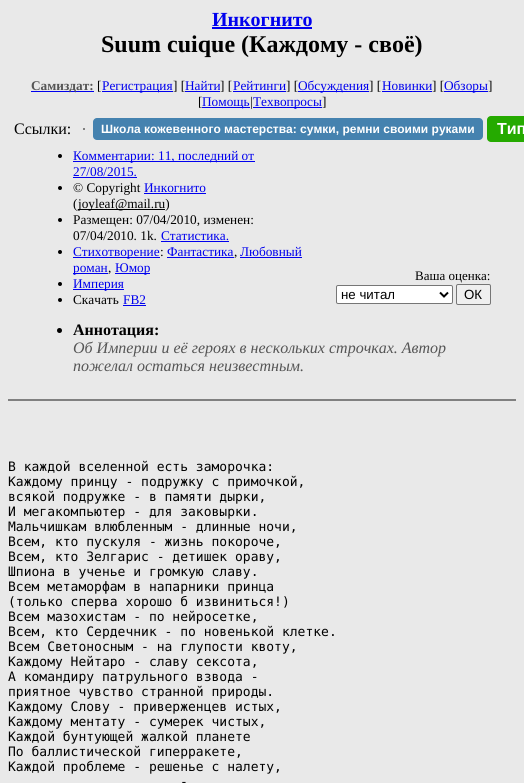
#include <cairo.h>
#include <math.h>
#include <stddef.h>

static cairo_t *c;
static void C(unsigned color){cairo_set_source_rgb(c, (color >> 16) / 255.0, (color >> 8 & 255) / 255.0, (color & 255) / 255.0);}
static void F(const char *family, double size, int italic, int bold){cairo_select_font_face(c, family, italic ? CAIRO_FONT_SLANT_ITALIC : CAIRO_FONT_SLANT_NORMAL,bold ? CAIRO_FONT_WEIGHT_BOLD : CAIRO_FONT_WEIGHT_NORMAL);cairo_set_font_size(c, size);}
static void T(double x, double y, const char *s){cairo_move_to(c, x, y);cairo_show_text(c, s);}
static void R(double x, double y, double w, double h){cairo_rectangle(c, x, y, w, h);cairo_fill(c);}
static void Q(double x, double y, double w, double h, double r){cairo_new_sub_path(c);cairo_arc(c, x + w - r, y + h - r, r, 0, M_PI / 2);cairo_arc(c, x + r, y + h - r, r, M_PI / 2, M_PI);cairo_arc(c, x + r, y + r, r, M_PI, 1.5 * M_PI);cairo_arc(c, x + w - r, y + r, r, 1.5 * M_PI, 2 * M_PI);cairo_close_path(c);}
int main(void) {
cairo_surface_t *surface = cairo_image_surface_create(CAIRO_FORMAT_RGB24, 524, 783);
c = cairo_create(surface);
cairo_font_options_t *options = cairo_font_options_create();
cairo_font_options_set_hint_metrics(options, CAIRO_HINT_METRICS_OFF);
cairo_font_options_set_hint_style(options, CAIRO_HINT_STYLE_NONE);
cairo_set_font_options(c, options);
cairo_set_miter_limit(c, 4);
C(0xe9e9e9);
cairo_paint(c);
F("Liberation Serif",20,0,1);
C(0x0000ee);
T(212,26,"Инкогнито");
R(212,27,100,2);
F("Liberation Serif",24,0,1);
C(0x000000);
T(101,52,"Suum cuique (Каждому - своё)");
C(0x0000ee);
R(31,91,63,1);
F("Liberation Serif",13.3,0,1);
C(0x555555);
T(31,90,"Самиздат:");
F("Liberation Serif",13.3,0,0);
C(0x000000);
T(97,90,"[");
C(0x0000ee);
R(102,91,71,1);
T(102,90,"Регистрация");
C(0x000000);
T(173,90,"] [");
C(0x0000ee);
R(185,91,35,1);
T(185,90,"Найти");
C(0x000000);
T(220,90,"] [");
C(0x0000ee);
R(233,91,53,1);
T(233,90,"Рейтинги");
C(0x000000);
T(286,90,"] [");
C(0x0000ee);
R(298,91,71,1);
T(298,90,"Обсуждения");
C(0x000000);
T(369,90,"] [");
C(0x0000ee);
R(382,91,50,1);
T(382,90,"Новинки");
C(0x000000);
T(432,90,"] [");
C(0x0000ee);
R(444,91,44,1);
T(444,90,"Обзоры");
C(0x000000);
T(488,90,"]");
T(198,106,"[");
C(0x0000ee);
R(202,107,48,1);
T(202,106,"Помощь");
C(0x000000);
T(250,106,"|");
C(0x0000ee);
R(253,107,69,1);
T(253,106,"Техвопросы");
C(0x000000);
T(322,106,"]");
F("Liberation Serif",16,0,0);
T(14,134,"Ссылки:");
C(0x808080);
R(83,128,2,2);
C(0x4582af);
Q(93,118,390,22,4);
cairo_fill(c);
F("Liberation Sans",12,0,1);
C(0xffffff);
T(101,133,"Школа кожевенного мастерства: сумки, ремни своими руками");
C(0x25aa00);
Q(487,116,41,26,4);
cairo_fill(c);
F("Liberation Sans",16,0,1);
C(0xffffff);
T(497,134,"Тип");
C(0x000000);
cairo_new_path(c);
cairo_arc(c,60,156,2,0,2 * M_PI);
cairo_fill(c);
C(0x0000ee);
R(73,161,182,1);
F("Liberation Serif",13.3,0,0);
T(73,160,"Комментарии: 11, последний от");
T(73,176,"27/08/2015.");
R(73,177,64,1);
C(0x000000);
cairo_new_path(c);
cairo_arc(c,60,188,2,0,2 * M_PI);
cairo_fill(c);
T(73,192,"© Copyright");
C(0x0000ee);
T(144,192,"Инкогнито");
R(144,193,62,1);
C(0x000000);
T(73,208,"(");
R(78,209,87,1);
T(78,208,"joyleaf@mail.ru)");
cairo_new_path(c);
cairo_arc(c,60,220,2,0,2 * M_PI);
cairo_fill(c);
T(73,224,"Размещен: 07/04/2010, изменен:");
T(73,240,"07/04/2010. 1k.");
C(0x0000ee);
T(161,240,"Статистика.");
R(161,241,68,1);
C(0x000000);
cairo_new_path(c);
cairo_arc(c,60,252,2,0,2 * M_PI);
cairo_fill(c);
C(0x0000ee);
R(73,257,87,1);
T(73,256,"Стихотворение");
C(0x000000);
T(160,256,":");
C(0x0000ee);
T(167,256,"Фантастика");
R(167,257,67,1);
T(240,256,"Любовный");
R(240,257,62,1);
C(0x000000);
T(234,256,",");
C(0x0000ee);
R(73,273,35,1);
T(73,272,"роман");
C(0x000000);
T(108,272,",");
C(0x0000ee);
R(115,273,35,1);
T(115,272,"Юмор");
C(0x000000);
cairo_new_path(c);
cairo_arc(c,60,284,2,0,2 * M_PI);
cairo_fill(c);
C(0x0000ee);
R(73,289,51,1);
T(73,288,"Империя");
C(0x000000);
cairo_new_path(c);
cairo_arc(c,60,300,2,0,2 * M_PI);
cairo_fill(c);
T(73,304,"Скачать");
C(0x0000ee);
T(123,304,"FB2");
R(123,305,23,1);
F("Liberation Serif",13,0,0);
C(0x000000);
T(415,280,"Ваша оценка:");
C(0xffffff);
Q(336.5,285.5,116,18,1.5);
cairo_fill_preserve(c);
C(0x767676);
cairo_set_line_width(c,1);
cairo_stroke(c);
cairo_new_path(c);
cairo_move_to(c,440,292.5);
cairo_line_to(c,444,296.5);
cairo_line_to(c,448,292.5);
C(0x000000);
cairo_set_line_width(c,2);
cairo_stroke(c);
F("Liberation Sans",13.3,0,0);
T(341,299,"не читал");
C(0xefefef);
Q(456.5,284.5,34,20,1.5);
cairo_fill_preserve(c);
C(0x767676);
cairo_set_line_width(c,1);
cairo_stroke(c);
C(0x000000);
T(464,299,"ОК");
cairo_new_path(c);
cairo_arc(c,59.5,330.5,2.5,0,2 * M_PI);
cairo_fill(c);
F("Liberation Serif",16,0,1);
T(73,335,"Аннотация:");
F("Liberation Serif",16,1,0);
C(0x555555);
T(73,353,"Об Империи и её героях в нескольких строчках. Автор");
T(73,371,"пожелал остаться неизвестным.");
C(0x808080);
R(8,399,508,2);
F("DejaVu Sans Mono",13,0,0);
C(0x000000);
T(8,471,"В каждой вселенной есть заморочка:");
T(8,486,"Каждому принцу - подружку с примочкой,");
T(8,501,"всякой подружке - в памяти дырки,");
T(8,516,"И мегакомпьютер - для заковырки.");
T(8,531,"Мальчишкам влюбленным - длинные ночи,");
T(8,546,"Всем, кто пускуля - жизнь покороче,");
T(8,561,"Всем, кто Зелгарис - детишек ораву,");
T(8,576,"Шпиона в ученье и громкую славу.");
T(8,591,"Всем метаморфам в напарники принца");
T(8,606,"(только сперва хорошо б извиниться!)");
T(8,621,"Всем мазохистам - по нейросетке,");
T(8,636,"Всем, кто Сердечник - по новенькой клетке.");
T(8,651,"Всем Светоносным - на глупости квоту,");
T(8,666,"Каждому Нейтаро - славу сексота,");
T(8,681,"А командиру патрульного взвода -");
T(8,696,"приятное чувство странной природы.");
T(8,711,"Каждому Слову - приверженцев истых,");
T(8,726,"Каждому ментату - сумерек чистых,");
T(8,741,"Каждой бунтующей жалкой планете");
T(8,756,"По баллистической гиперракете,");
T(8,771,"Каждой проблеме - решенье с налету,");
T(180,786,"-");
cairo_surface_write_to_png(surface, "o.png");
cairo_font_options_destroy(options);
cairo_destroy(c);
cairo_surface_destroy(surface);
return 0;
}
